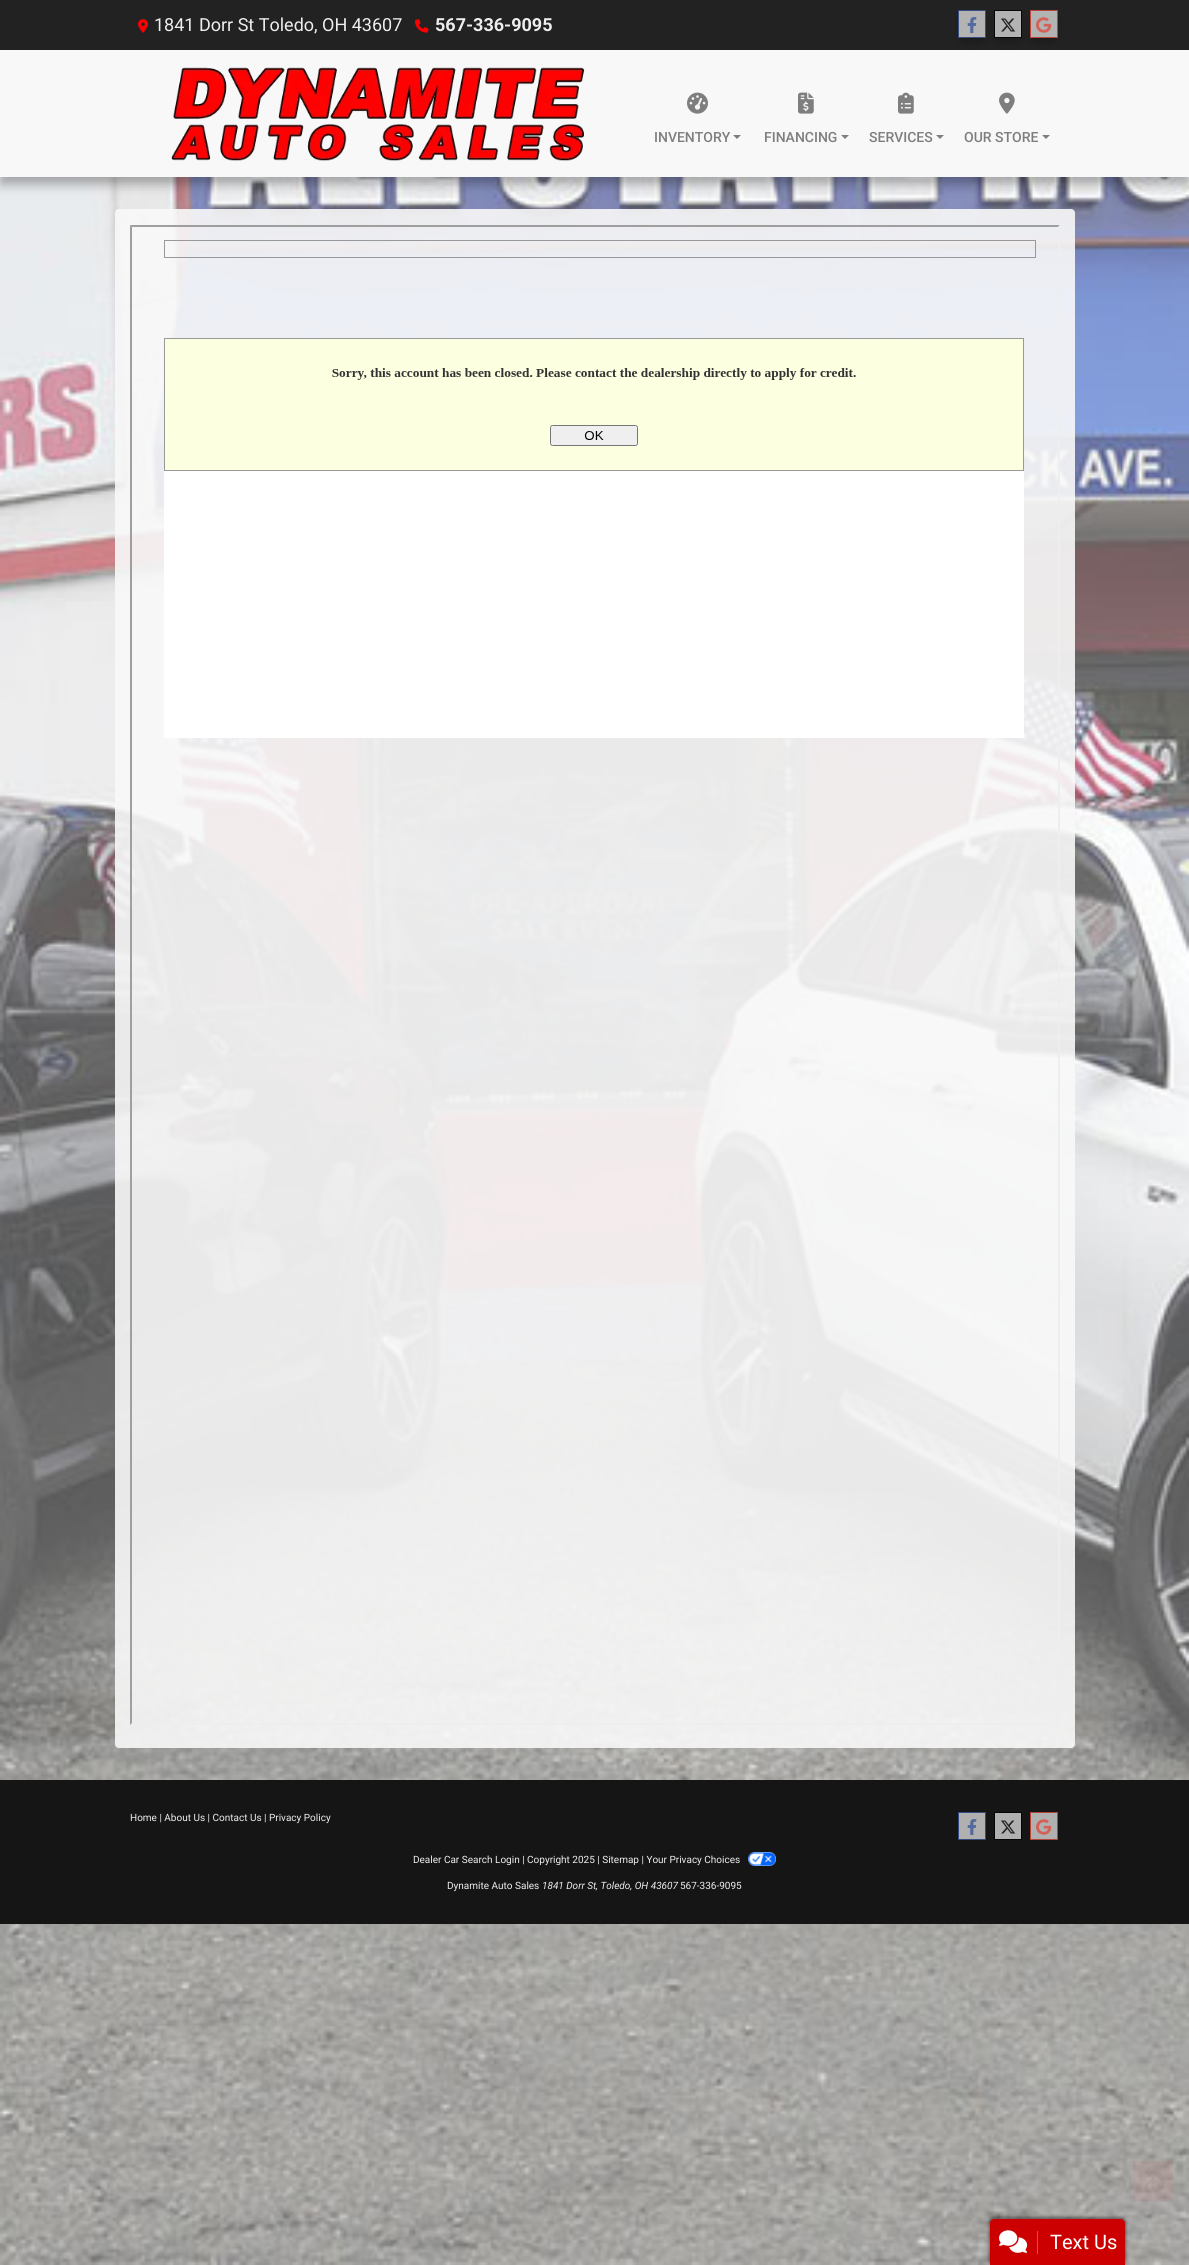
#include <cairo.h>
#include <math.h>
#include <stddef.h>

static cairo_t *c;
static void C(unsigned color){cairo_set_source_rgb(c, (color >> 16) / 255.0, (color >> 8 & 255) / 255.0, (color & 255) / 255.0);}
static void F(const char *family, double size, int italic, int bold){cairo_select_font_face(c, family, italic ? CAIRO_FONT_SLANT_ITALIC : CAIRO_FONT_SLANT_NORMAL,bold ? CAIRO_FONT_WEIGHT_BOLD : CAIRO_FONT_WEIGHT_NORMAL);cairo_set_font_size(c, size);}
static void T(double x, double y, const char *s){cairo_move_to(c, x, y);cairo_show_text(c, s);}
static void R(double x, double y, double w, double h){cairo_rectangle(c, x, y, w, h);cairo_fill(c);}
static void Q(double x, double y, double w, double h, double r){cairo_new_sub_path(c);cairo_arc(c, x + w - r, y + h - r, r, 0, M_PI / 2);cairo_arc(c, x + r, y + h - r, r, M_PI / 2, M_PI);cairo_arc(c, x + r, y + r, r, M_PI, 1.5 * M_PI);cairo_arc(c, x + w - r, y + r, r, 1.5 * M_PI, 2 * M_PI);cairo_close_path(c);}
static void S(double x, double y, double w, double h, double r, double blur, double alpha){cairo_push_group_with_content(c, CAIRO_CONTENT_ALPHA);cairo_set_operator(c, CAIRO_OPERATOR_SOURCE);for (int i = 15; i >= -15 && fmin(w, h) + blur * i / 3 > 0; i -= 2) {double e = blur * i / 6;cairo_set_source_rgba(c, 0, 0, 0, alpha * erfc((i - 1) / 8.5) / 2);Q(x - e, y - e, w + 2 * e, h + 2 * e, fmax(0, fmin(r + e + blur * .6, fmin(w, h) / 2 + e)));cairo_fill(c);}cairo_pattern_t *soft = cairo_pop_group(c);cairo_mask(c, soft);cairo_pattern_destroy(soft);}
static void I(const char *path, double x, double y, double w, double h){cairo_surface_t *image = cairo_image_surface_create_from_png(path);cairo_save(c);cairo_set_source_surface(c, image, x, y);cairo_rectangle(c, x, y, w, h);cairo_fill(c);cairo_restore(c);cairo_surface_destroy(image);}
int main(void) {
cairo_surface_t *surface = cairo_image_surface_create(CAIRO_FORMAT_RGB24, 1189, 2265);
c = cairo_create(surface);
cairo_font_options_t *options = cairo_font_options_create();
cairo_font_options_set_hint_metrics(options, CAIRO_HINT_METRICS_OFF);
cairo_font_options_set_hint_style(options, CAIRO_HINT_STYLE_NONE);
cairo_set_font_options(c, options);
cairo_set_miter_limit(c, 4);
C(0xffffff);
cairo_paint(c);
I("1.png",0,177,1189,2088);
C(0x000000);
S(0,5,1189,177,0,2.5,.1);
S(0,10,1189,177,0,5,.2);
C(0xf8f8f8);
R(0,50,1189,127);
C(0x222222);
R(0,0,1189,50);
I("2.png",138,19,11,14);
F("Roboto",18,0,0);
C(0xeeeeee);
T(154,31,"1841 Dorr St Toledo, OH 43607");
I("3.png",415,19,14,14);
F("Roboto",18,0,1);
T(435,31,"567-336-9095");
C(0x070707);
S(963,20,18,18,0,5,.6);
C(0xb3b3b3);
cairo_rectangle(c,958.5,10.5,27,27);
cairo_fill_preserve(c);
C(0x364e80);
cairo_set_line_width(c,1);
cairo_stroke(c);
I("4.png",967,17,10,16);
C(0x070707);
S(999,20,18,18,0,5,.6);
C(0xb3b3b3);
cairo_rectangle(c,994.5,10.5,27,27);
cairo_fill_preserve(c);
C(0x070707);
cairo_stroke(c);
I("5.png",1001,18,15,14);
C(0x070707);
S(1035,20,18,18,0,5,.6);
C(0xb3b3b3);
cairo_rectangle(c,1030.5,10.5,27,27);
cairo_fill_preserve(c);
C(0xb7453b);
cairo_stroke(c);
I("6.png",1036,17,16,16);
I("7.png",171,67,414,94);
I("8.png",687,92,21,22);
F("Roboto Medium",14,0,0);
C(0x7e7e7e);
T(654,142,"INVENTORY");
cairo_new_path(c);
cairo_move_to(c,733,135);
cairo_line_to(c,741,135);
cairo_line_to(c,737,139);
cairo_close_path(c);
cairo_fill(c);
I("9.png",798,92,16,22);
T(764,142,"FINANCING");
cairo_new_path(c);
cairo_move_to(c,841,135);
cairo_line_to(c,849,135);
cairo_line_to(c,845,139);
cairo_close_path(c);
cairo_fill(c);
I("10.png",898,92,16,22);
T(869,142,"SERVICES");
cairo_new_path(c);
cairo_move_to(c,936,135);
cairo_line_to(c,944,135);
cairo_line_to(c,940,139);
cairo_close_path(c);
cairo_fill(c);
I("11.png",999,92,16,22);
T(964,142,"OUR STORE");
cairo_new_path(c);
cairo_move_to(c,1042,135);
cairo_line_to(c,1050,135);
cairo_line_to(c,1046,139);
cairo_close_path(c);
cairo_fill(c);
cairo_set_source_rgba(c,0.973,0.973,0.973,0.9);
Q(115,209,960,1539,4);
cairo_fill(c);
C(0x9f9f9f);
cairo_new_path(c);
cairo_move_to(c,130,225);
cairo_line_to(c,1060,225);
cairo_line_to(c,1058,227);
cairo_line_to(c,132,227);
cairo_close_path(c);
cairo_fill(c);
C(0xeeeeee);
cairo_new_path(c);
cairo_move_to(c,1060,225);
cairo_line_to(c,1060,1725);
cairo_line_to(c,1058,1723);
cairo_line_to(c,1058,227);
cairo_close_path(c);
cairo_fill(c);
cairo_new_path(c);
cairo_move_to(c,1060,1725);
cairo_line_to(c,130,1725);
cairo_line_to(c,132,1723);
cairo_line_to(c,1058,1723);
cairo_close_path(c);
cairo_fill(c);
C(0x9f9f9f);
cairo_new_path(c);
cairo_move_to(c,130,1725);
cairo_line_to(c,130,225);
cairo_line_to(c,132,227);
cairo_line_to(c,132,1723);
cairo_close_path(c);
cairo_fill(c);
I("12.png",164,240,872,498);
C(0x151515);
R(0,1780,1189,144);
F("Roboto",10,0,0);
C(0xeeeeee);
T(130,1821,"Home | About Us | Contact Us | Privacy Policy");
C(0xb0b0b0);
cairo_rectangle(c,958.5,1812.5,27,27);
cairo_fill_preserve(c);
C(0x334b7e);
cairo_stroke(c);
I("13.png",967,1819,10,16);
C(0xb0b0b0);
cairo_rectangle(c,994.5,1812.5,27,27);
cairo_fill_preserve(c);
C(0x040404);
cairo_stroke(c);
I("14.png",1001,1820,15,14);
C(0xb0b0b0);
cairo_rectangle(c,1030.5,1812.5,27,27);
cairo_fill_preserve(c);
C(0xb44338);
cairo_stroke(c);
I("15.png",1036,1819,16,16);
C(0xeeeeee);
T(413,1863,"Dealer Car Search Login | Copyright 2025 | Sitemap | Your Privacy Choices");
I("16.png",748,1852,28,14);
T(447,1889,"Dynamite Auto Sales");
F("Roboto",10,1,0);
T(542,1889,"1841 Dorr St, Toledo, OH 43607");
F("Roboto",10,0,0);
T(680,1889,"567-336-9095");
cairo_set_source_rgba(c,1,0,0,0.05);
R(1133,2161,40,40);
I("17.png",1143,2174,20,11);
C(0x000000);
S(989,2217,137,48,5,1,.25);
S(988,2216,139,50,6,1.5,.15);
C(0xcc0000);
cairo_new_path(c);
cairo_move_to(c,994,2219);
cairo_line_to(c,1121,2219);
cairo_curve_to(c,1123,2219,1125,2221,1125,2223);
cairo_line_to(c,1125,2265);
cairo_line_to(c,990,2265);
cairo_line_to(c,990,2223);
cairo_curve_to(c,990,2221,992,2219,994,2219);
cairo_close_path(c);
cairo_fill(c);
C(0xdb4d4d);
R(1037,2231,1,23);
I("18.png",999,2230,29,23);
F("Roboto",20,0,0);
C(0xffffff);
T(1050,2249,"Text Us");
cairo_surface_write_to_png(surface, "o.png");
cairo_font_options_destroy(options);
cairo_destroy(c);
cairo_surface_destroy(surface);
return 0;
}
